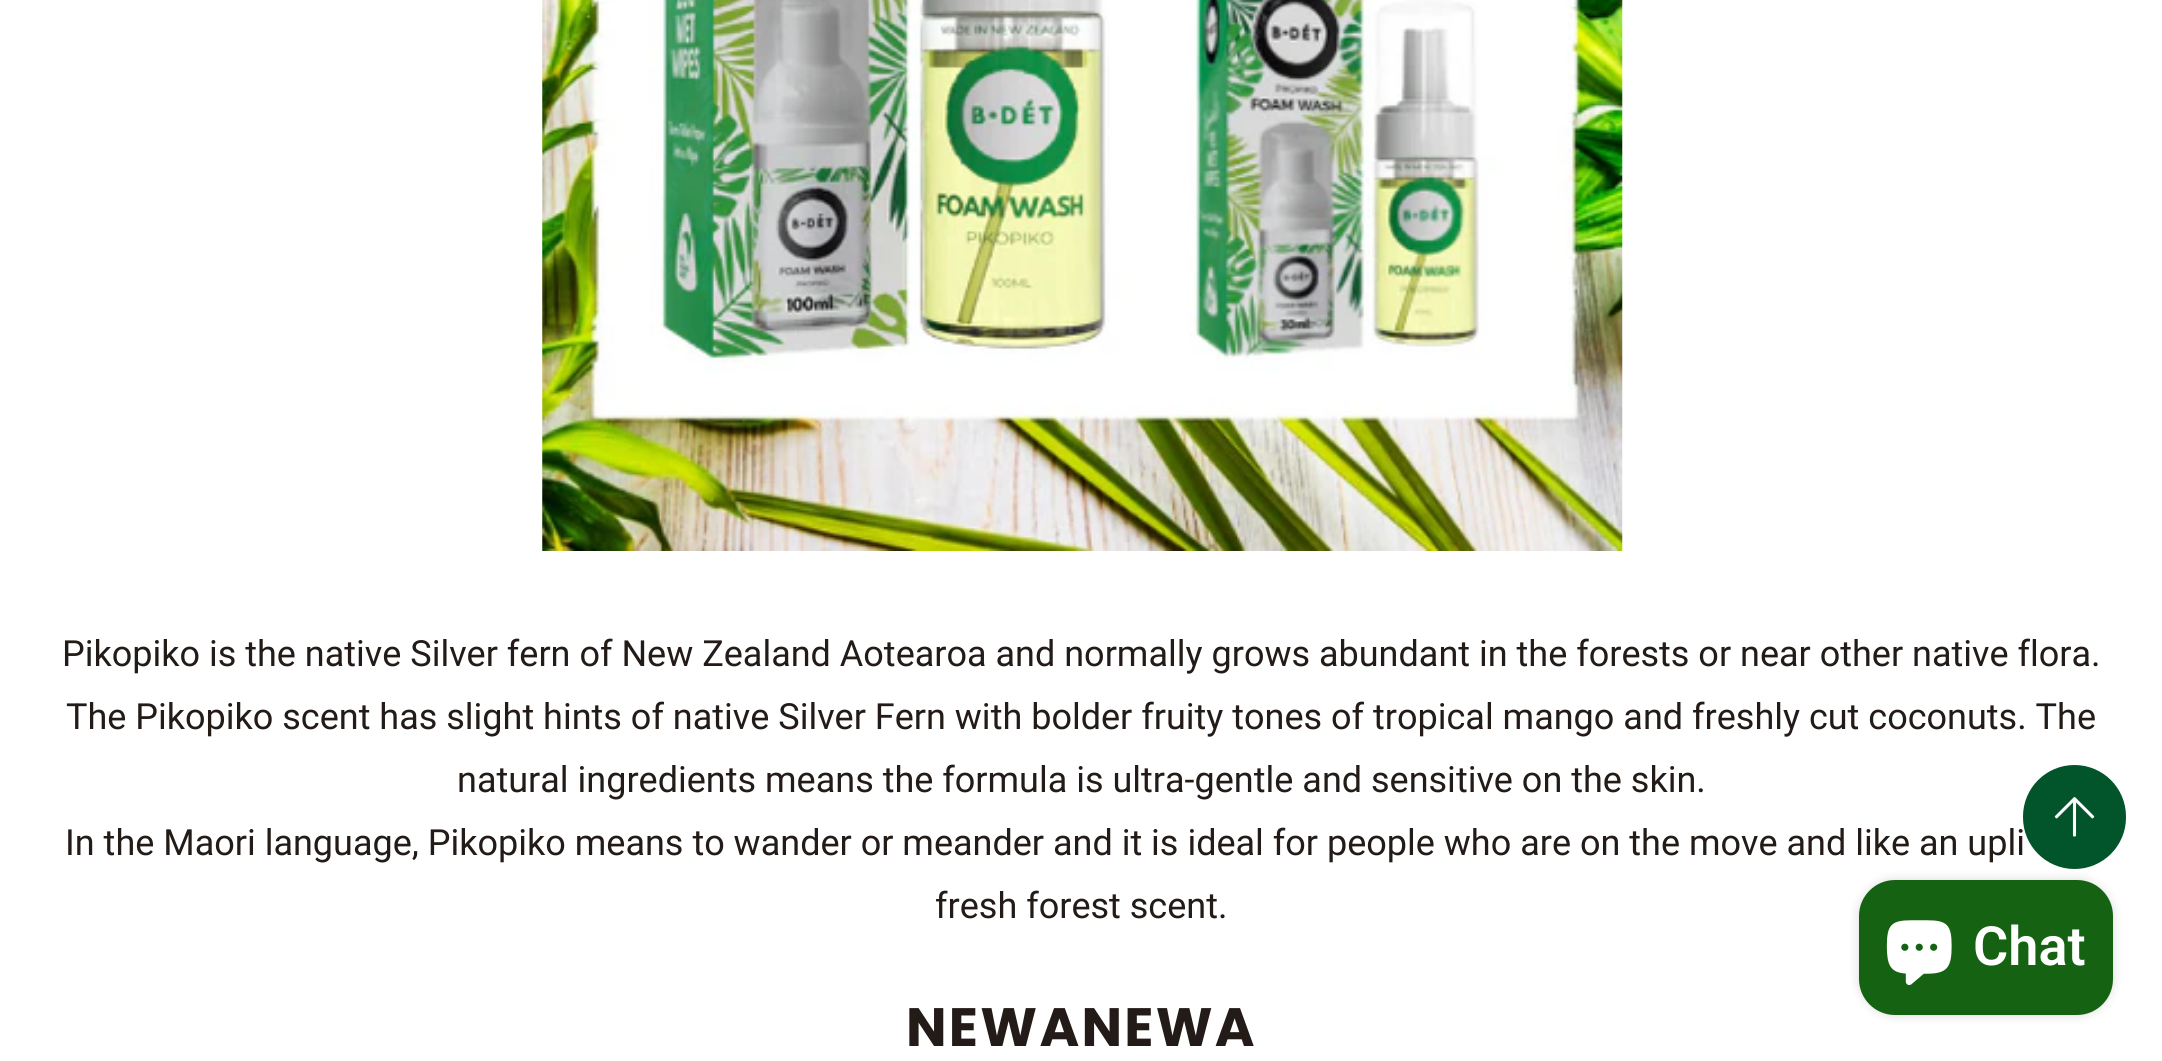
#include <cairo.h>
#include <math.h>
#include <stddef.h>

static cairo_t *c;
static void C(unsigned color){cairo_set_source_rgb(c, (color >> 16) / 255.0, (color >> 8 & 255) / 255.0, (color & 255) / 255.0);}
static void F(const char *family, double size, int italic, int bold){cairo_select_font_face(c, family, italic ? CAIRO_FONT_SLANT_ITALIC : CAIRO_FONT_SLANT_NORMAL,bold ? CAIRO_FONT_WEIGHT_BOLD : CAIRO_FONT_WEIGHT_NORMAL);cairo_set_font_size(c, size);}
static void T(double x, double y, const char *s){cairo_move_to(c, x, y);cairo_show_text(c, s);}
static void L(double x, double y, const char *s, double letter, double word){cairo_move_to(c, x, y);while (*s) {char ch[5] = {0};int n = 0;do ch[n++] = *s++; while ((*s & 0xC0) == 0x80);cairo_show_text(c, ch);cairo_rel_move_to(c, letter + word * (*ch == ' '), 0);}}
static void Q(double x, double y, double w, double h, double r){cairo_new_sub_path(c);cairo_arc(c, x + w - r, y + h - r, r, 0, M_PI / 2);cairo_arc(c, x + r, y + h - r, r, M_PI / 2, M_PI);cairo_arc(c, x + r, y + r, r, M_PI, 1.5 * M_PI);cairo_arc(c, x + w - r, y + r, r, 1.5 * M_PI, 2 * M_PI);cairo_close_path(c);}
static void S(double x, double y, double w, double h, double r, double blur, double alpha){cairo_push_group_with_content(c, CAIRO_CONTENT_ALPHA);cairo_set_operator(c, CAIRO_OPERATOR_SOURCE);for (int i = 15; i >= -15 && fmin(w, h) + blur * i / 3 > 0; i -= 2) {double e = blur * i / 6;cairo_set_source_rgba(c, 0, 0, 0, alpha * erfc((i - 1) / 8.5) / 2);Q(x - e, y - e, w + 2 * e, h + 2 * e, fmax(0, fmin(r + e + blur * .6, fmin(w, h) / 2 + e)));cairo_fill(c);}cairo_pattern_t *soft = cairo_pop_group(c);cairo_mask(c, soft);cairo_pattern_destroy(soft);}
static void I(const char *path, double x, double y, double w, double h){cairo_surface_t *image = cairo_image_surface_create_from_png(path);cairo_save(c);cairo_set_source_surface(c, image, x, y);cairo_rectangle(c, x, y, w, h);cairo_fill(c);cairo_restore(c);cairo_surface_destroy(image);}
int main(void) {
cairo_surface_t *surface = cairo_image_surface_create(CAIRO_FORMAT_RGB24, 2162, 1061);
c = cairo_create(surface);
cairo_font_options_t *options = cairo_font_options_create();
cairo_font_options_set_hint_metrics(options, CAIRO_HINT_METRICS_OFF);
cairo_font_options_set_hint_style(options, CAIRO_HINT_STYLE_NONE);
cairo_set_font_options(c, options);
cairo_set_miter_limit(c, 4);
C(0xffffff);
cairo_paint(c);
I("1.png",542,0,1081,551);
F("Roboto",36,0,0);
C(0x231b17);
T(62,666,"Pikopiko is the native Silver fern of New Zealand Aotearoa and normally grows abundant in the forests or near other native flora.");
T(66,729,"The Pikopiko scent has slight hints of native Silver Fern with bolder fruity tones of tropical mango and freshly cut coconuts. The");
T(457,792,"natural ingredients means the formula is ultra-gentle and sensitive on the skin.");
T(65,855,"In the Maori language, Pikopiko means to wander or meander and it is ideal for people who are on the move and like an upli");
T(935,918,"fresh forest scent.");
F("Poppins",54,0,1);
L(906,1046,"NEWANEWA",2.25,0);
C(0x02542a);
Q(2024,766,101,102,50.5);
cairo_fill_preserve(c);
cairo_stroke(c);
I("2.png",2054,797,41,40);
C(0x000000);
S(1859,880,254,135,36,5.5,.15);
C(0x156312);
Q(1859,880,254,135,36);
cairo_fill(c);
I("3.png",1886,920,66,65);
F("Roboto SemiBold",54,0,0);
C(0xffffff);
T(1973,965,"Chat");
cairo_surface_write_to_png(surface, "o.png");
cairo_font_options_destroy(options);
cairo_destroy(c);
cairo_surface_destroy(surface);
return 0;
}
